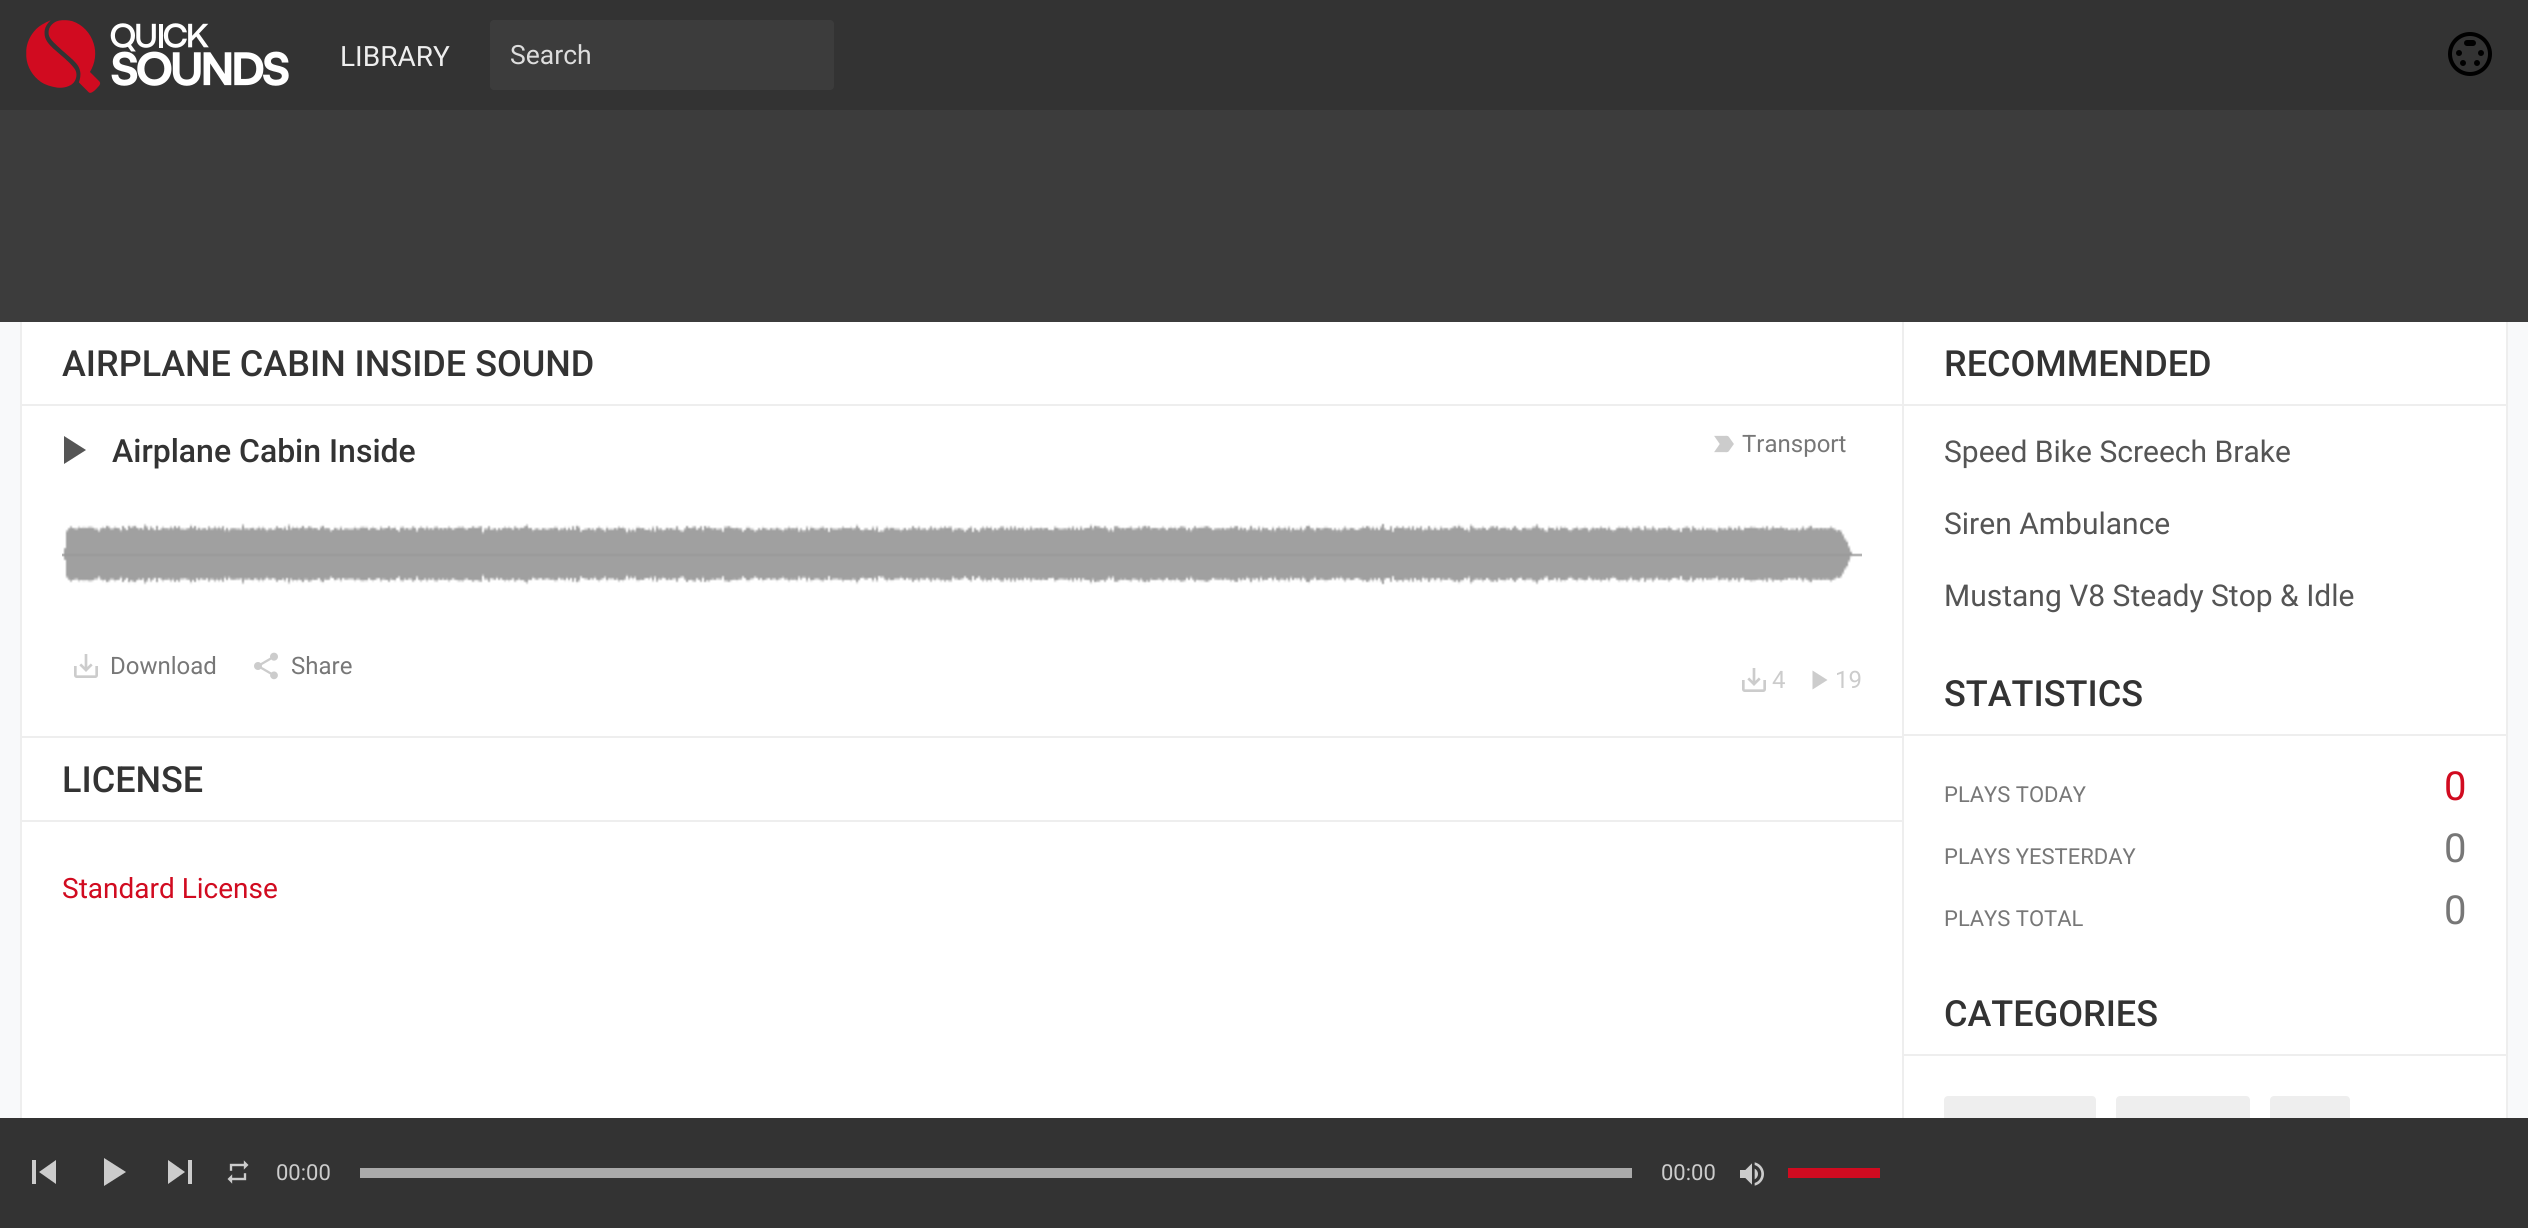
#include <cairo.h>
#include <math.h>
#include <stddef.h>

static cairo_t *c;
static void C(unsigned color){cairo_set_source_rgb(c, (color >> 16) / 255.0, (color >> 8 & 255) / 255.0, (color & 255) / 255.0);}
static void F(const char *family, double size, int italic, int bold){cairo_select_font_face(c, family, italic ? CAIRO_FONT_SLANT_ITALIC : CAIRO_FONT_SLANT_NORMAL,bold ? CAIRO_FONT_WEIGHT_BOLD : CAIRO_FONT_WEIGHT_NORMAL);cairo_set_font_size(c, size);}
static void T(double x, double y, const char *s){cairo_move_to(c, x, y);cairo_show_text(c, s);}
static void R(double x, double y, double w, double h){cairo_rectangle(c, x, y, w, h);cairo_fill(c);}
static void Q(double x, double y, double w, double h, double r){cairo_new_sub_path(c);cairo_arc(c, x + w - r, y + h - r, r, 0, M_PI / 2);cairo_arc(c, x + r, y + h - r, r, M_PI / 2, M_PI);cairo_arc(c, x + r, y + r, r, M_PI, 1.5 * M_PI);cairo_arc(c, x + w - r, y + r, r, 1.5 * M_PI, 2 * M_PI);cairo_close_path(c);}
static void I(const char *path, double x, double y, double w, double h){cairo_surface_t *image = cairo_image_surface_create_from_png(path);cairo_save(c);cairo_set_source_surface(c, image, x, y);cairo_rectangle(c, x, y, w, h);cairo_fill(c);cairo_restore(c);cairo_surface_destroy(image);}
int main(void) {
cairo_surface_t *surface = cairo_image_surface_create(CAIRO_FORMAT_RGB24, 2528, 1228);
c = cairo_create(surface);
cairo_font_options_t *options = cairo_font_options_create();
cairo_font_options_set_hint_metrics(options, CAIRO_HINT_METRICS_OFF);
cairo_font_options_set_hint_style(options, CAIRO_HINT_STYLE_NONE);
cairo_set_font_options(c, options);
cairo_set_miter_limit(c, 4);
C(0xf8f9fa);
cairo_paint(c);
C(0x333333);
R(0,0,2528,110);
I("1.png",26,20,263,73);
F("Roboto",28,0,0);
C(0xeeeeee);
T(340,66,"LIBRARY");
C(0x3c3c3c);
Q(490,20,344,70,4);
cairo_fill(c);
F("Roboto",26.5,0,0);
C(0xdddddd);
T(510,64,"Search");
I("2.png",2448,32,44,44);
C(0x3c3c3c);
R(0,110,2528,212);
C(0xffffff);
R(22,322,2484,796);
C(0xeeeeee);
R(2506,322,2,796);
R(20,322,2,796);
R(22,404,1880,2);
F("Roboto Medium",36,0,0);
C(0x333333);
T(62,376,"AIRPLANE CABIN INSIDE SOUND");
C(0xeeeeee);
R(22,736,1880,2);
C(0x555555);
cairo_new_path(c);
cairo_move_to(c,64,436);
cairo_line_to(c,64,464);
cairo_line_to(c,86,450);
cairo_close_path(c);
cairo_fill(c);
F("Roboto Medium",32,0,0);
C(0x333333);
T(112,462,"Airplane Cabin Inside");
I("3.png",1714,435,20,18);
F("Roboto",24,0,0);
C(0x777777);
T(1742,452,"Transport");
I("4.png",62,523,1800,62);
I("5.png",74,654,24,24);
T(110,674,"Download");
I("6.png",254,652,24,28);
T(291,674,"Share");
I("5.png",1742,668,24,24);
C(0xcccccc);
T(1772,688,"4");
cairo_new_path(c);
cairo_move_to(c,1812.5,670.5);
cairo_line_to(c,1812.5,689.5);
cairo_line_to(c,1827.5,680);
cairo_close_path(c);
cairo_fill(c);
T(1835,688,"19");
C(0xeeeeee);
R(22,820,1880,2);
F("Roboto Medium",36,0,0);
C(0x333333);
T(62,792,"LICENSE");
F("Roboto",28,0,0);
C(0xd10b20);
T(62,898,"Standard License");
C(0xeeeeee);
R(1902,322,2,796);
R(1904,404,602,2);
F("Roboto Medium",36,0,0);
C(0x333333);
T(1944,376,"RECOMMENDED");
F("Roboto",30,0,0);
C(0x555555);
T(1944,462,"Speed Bike Screech Brake");
T(1944,534,"Siren Ambulance");
T(1944,606,"Mustang V8 Steady Stop & Idle");
C(0xeeeeee);
R(1904,734,602,2);
F("Roboto Medium",36,0,0);
C(0x333333);
T(1944,706,"STATISTICS");
F("Roboto",22,0,0);
C(0x777777);
T(1944,802,"PLAYS TODAY");
F("Roboto",40,0,0);
C(0xd10b20);
T(2444,800,"0");
F("Roboto",22,0,0);
C(0x777777);
T(1944,864,"PLAYS YESTERDAY");
F("Roboto",40,0,0);
T(2444,862,"0");
F("Roboto",22,0,0);
T(1944,926,"PLAYS TOTAL");
F("Roboto",40,0,0);
T(2444,924,"0");
C(0xeeeeee);
R(1904,1054,602,2);
F("Roboto Medium",36,0,0);
C(0x333333);
T(1944,1026,"CATEGORIES");
C(0xeeeeee);
Q(1944,1096,152,44,4);
cairo_fill(c);
Q(2116,1096,134,44,4);
cairo_fill(c);
Q(2270,1096,80,44,4);
cairo_fill(c);
C(0x333333);
R(0,1118,2528,110);
C(0xcccccc);
cairo_new_path(c);
cairo_move_to(c,32,1160);
cairo_line_to(c,36,1160);
cairo_line_to(c,36,1184);
cairo_line_to(c,32,1184);
cairo_close_path(c);
cairo_move_to(c,39,1172);
cairo_line_to(c,56,1184);
cairo_line_to(c,56,1160);
cairo_close_path(c);
cairo_fill(c);
cairo_new_path(c);
cairo_move_to(c,104,1158);
cairo_line_to(c,104,1186);
cairo_line_to(c,126,1172);
cairo_close_path(c);
cairo_fill(c);
cairo_new_path(c);
cairo_move_to(c,168,1184);
cairo_line_to(c,185,1172);
cairo_line_to(c,168,1160);
cairo_close_path(c);
cairo_move_to(c,188,1160);
cairo_line_to(c,188,1184);
cairo_line_to(c,192,1184);
cairo_line_to(c,192,1160);
cairo_close_path(c);
cairo_fill(c);
I("7.png",227,1160,22,24);
F("Roboto",22,0,0);
T(276,1180,"00:00");
C(0xaaaaaa);
R(360,1168,1272,10);
C(0xcccccc);
T(1661,1180,"00:00");
I("8.png",1740,1162,24,24);
C(0xd10b20);
R(1788,1168,92,10);
cairo_surface_write_to_png(surface, "o.png");
cairo_font_options_destroy(options);
cairo_destroy(c);
cairo_surface_destroy(surface);
return 0;
}
